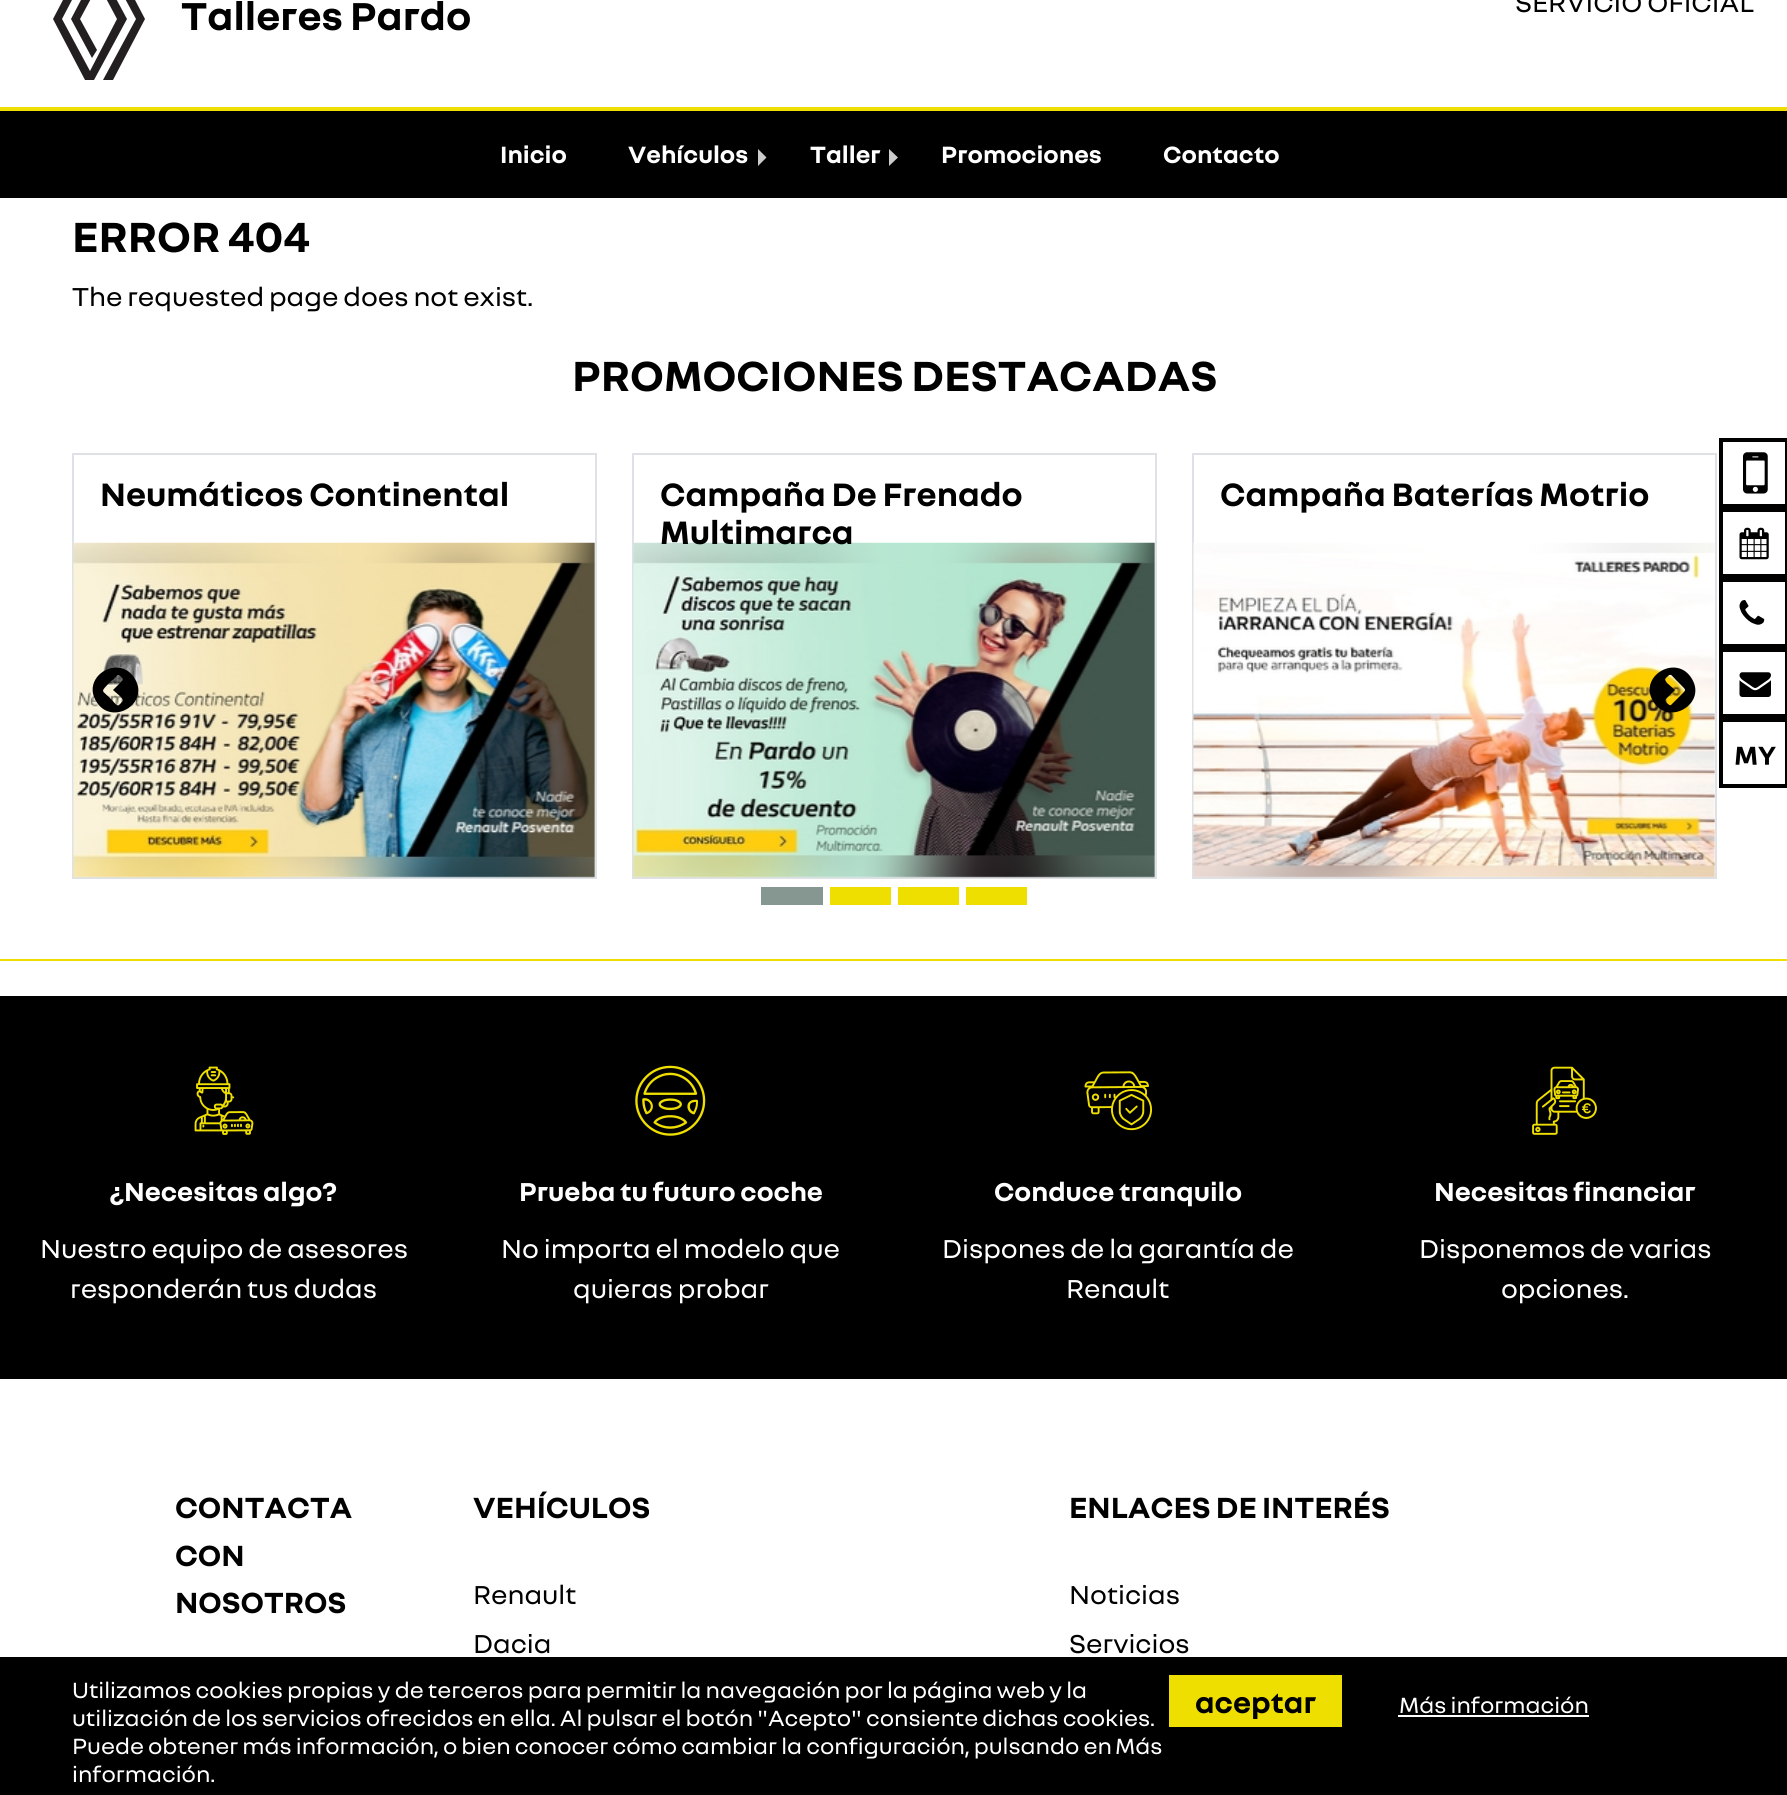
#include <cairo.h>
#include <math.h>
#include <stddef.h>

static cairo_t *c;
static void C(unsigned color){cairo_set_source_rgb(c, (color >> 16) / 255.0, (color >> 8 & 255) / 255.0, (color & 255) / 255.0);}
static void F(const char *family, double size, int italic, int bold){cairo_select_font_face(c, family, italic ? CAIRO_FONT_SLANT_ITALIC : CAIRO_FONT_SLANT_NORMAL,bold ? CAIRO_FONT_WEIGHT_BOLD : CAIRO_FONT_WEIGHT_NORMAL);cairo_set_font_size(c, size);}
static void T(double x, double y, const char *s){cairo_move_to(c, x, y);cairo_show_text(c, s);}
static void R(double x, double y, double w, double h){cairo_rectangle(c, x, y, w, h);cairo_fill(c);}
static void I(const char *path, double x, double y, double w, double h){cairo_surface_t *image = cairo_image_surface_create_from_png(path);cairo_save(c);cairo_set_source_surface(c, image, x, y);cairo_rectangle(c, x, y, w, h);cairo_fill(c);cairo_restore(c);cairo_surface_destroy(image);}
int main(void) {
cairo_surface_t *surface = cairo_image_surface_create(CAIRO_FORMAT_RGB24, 1787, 1795);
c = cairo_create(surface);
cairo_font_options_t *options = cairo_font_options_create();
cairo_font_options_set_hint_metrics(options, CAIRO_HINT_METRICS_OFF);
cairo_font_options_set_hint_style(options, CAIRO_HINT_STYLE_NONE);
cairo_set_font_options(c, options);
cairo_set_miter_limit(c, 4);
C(0xffffff);
cairo_paint(c);
C(0x231f20);
cairo_set_fill_rule(c,CAIRO_FILL_RULE_EVEN_ODD);
cairo_new_path(c);
cairo_move_to(c,145,19);
cairo_line_to(c,113,-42);
cairo_line_to(c,103,-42);
cairo_line_to(c,71,19);
cairo_line_to(c,92,58);
cairo_line_to(c,97,50);
cairo_line_to(c,80,19);
cairo_line_to(c,108,-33);
cairo_line_to(c,136,19);
cairo_line_to(c,103,80);
cairo_line_to(c,113,80);
cairo_close_path(c);
cairo_move_to(c,127,19);
cairo_line_to(c,106,-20);
cairo_line_to(c,101,-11);
cairo_line_to(c,117,19);
cairo_line_to(c,90,71);
cairo_line_to(c,62,19);
cairo_line_to(c,94,-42);
cairo_line_to(c,85,-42);
cairo_line_to(c,53,19);
cairo_line_to(c,85,80);
cairo_line_to(c,94,80);
cairo_close_path(c);
cairo_fill(c);
F("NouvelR",42,0,1);
C(0x000000);
T(181,30,"Talleres Pardo");
F("NouvelR",28,0,0);
T(1515,12,"SERVICIO OFICIAL");
R(0,111,1787,87);
C(0xefdf00);
R(0,107,1787,4);
F("NouvelR",25.5,0,1);
C(0xffffff);
T(500,163,"Inicio");
T(628,163,"Vehículos");
C(0xcccccc);
cairo_set_fill_rule(c,CAIRO_FILL_RULE_WINDING);
cairo_new_path(c);
cairo_move_to(c,758,166);
cairo_line_to(c,758,149);
cairo_line_to(c,766.5,157.5);
cairo_close_path(c);
cairo_fill(c);
C(0xffffff);
T(810,163,"Taller");
C(0xcccccc);
cairo_new_path(c);
cairo_move_to(c,889,166);
cairo_line_to(c,889,149);
cairo_line_to(c,898,157.5);
cairo_close_path(c);
cairo_fill(c);
C(0xffffff);
T(941,163,"Promociones");
T(1163,163,"Contacto");
cairo_rectangle(c,1721,440,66,66);
C(0x000000);
cairo_set_line_width(c,4);
cairo_stroke(c);
I("1.png",1743,452,25,42);
cairo_rectangle(c,1721,510,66,66);
cairo_stroke(c);
I("2.png",1739,527,30,33);
cairo_rectangle(c,1721,580,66,66);
cairo_stroke(c);
I("3.png",1739,600,26,25);
cairo_rectangle(c,1721,650,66,66);
cairo_stroke(c);
I("4.png",1739,672,32,25);
cairo_rectangle(c,1721,720,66,66);
cairo_stroke(c);
I("5.png",1735,746,41,19);
F("NouvelR",45.5,0,1);
T(72,252,"ERROR 404");
F("NouvelR",28,0,0);
T(72,306,"The requested page does not exist.");
F("NouvelR",45.5,0,1);
T(572,391,"PROMOCIONES DESTACADAS");
cairo_rectangle(c,73,454,523,424);
C(0xdee2e6);
cairo_set_line_width(c,2);
cairo_stroke(c);
F("NouvelR",35,0,1);
C(0x000000);
T(100,506,"Neumáticos Continental");
I("6.png",73,542,522,336);
cairo_rectangle(c,633,454,523,424);
C(0xdee2e6);
cairo_stroke(c);
C(0x000000);
T(660,506,"Campaña De Frenado");
I("7.png",633,542,522,336);
T(660,544,"Multimarca");
cairo_rectangle(c,1193,454,523,424);
C(0xdee2e6);
cairo_stroke(c);
C(0x000000);
T(1220,506,"Campaña Baterías Motrio");
I("8.png",1193,542,522,336);
cairo_new_path(c);
cairo_move_to(c,119,705);
cairo_curve_to(c,123,701,124,701,121,697);
cairo_line_to(c,113,690);
cairo_line_to(c,122,681);
cairo_curve_to(c,124,679,121,677,120,676);
cairo_curve_to(c,118,674,117,675,115,678);
cairo_line_to(c,110,682);
cairo_curve_to(c,100,693,101,689,112,700);
cairo_curve_to(c,113,701,117,707,119,705);
cairo_close_path(c);
cairo_move_to(c,135,679);
cairo_curve_to(c,150,704,111,727,96,701);
cairo_curve_to(c,81,676,120,653,135,679);
cairo_close_path(c);
cairo_fill(c);
cairo_new_path(c);
cairo_move_to(c,1671,705);
cairo_line_to(c,1682,694);
cairo_curve_to(c,1686,690,1686,690,1682,686);
cairo_line_to(c,1676,680);
cairo_curve_to(c,1672,676,1671,673,1668,676);
cairo_curve_to(c,1665,679,1664,679,1667,683);
cairo_line_to(c,1675,690);
cairo_line_to(c,1669,696);
cairo_curve_to(c,1666,699,1664,700,1667,703);
cairo_curve_to(c,1668,704,1670,706,1671,705);
cairo_close_path(c);
cairo_move_to(c,1692,679);
cairo_curve_to(c,1707,704,1668,727,1653,701);
cairo_curve_to(c,1638,676,1677,653,1692,679);
cairo_close_path(c);
cairo_fill(c);
C(0x869791);
R(761,887,62,18);
C(0xefdf00);
R(830,887,61,18);
R(898,887,61,18);
R(966,887,61,18);
R(0,959,1787,2);
C(0x000000);
R(0,996,1787,383);
I("9.png",194,1066,60,69);
F("NouvelR",28,0,1);
C(0xffffff);
T(110,1201,"¿Necesitas algo?");
F("NouvelR",28,0,0);
T(40,1258,"Nuestro equipo de asesores");
T(70,1298,"responderán tus dudas");
I("10.png",635,1065,71,71);
F("NouvelR",28,0,1);
T(519,1201,"Prueba tu futuro coche");
F("NouvelR",28,0,0);
T(501,1258,"No importa el modelo que");
T(573,1298,"quieras probar");
I("11.png",1084,1071,68,60);
F("NouvelR",28,0,1);
T(994,1201,"Conduce tranquilo");
F("NouvelR",28,0,0);
T(942,1258,"Dispones de la garantía de");
T(1066,1298,"Renault");
I("12.png",1532,1066,65,69);
F("NouvelR",28,0,1);
T(1434,1201,"Necesitas financiar");
F("NouvelR",28,0,0);
T(1419,1258,"Disponemos de varias");
T(1501,1298,"opciones.");
F("NouvelR",31.5,0,1);
C(0x000000);
T(175,1518,"CONTACTA");
T(175,1566,"CON");
T(175,1613,"NOSOTROS");
T(473,1518,"VEHÍCULOS");
F("NouvelR",28,0,0);
T(473,1604,"Renault");
T(473,1653,"Dacia");
F("NouvelR",31.5,0,1);
T(1069,1518,"ENLACES DE INTERÉS");
F("NouvelR",28,0,0);
T(1069,1604,"Noticias");
T(1069,1653,"Servicios");
R(0,1657,1787,138);
F("NouvelR",23.8,0,0);
C(0xffffff);
T(72,1698,"Utilizamos cookies propias y de terceros para permitir la navegación por la página web y la");
T(72,1726,"utilización de los servicios ofrecidos en ella. Al pulsar el botón \"Acepto\" consiente dichas cookies.");
T(72,1754,"Puede obtener más información, o bien conocer cómo cambiar la configuración, pulsando en");
T(1115,1754,"Más");
T(72,1782,"información.");
C(0xefdf00);
R(1169,1675,173,52);
F("NouvelR",31.5,0,1);
C(0x000000);
T(1195,1713,"aceptar");
F("NouvelR",23.8,0,0);
C(0xffffff);
T(1399,1713,"Más información");
R(1398,1715,191,2);
cairo_surface_write_to_png(surface, "o.png");
cairo_font_options_destroy(options);
cairo_destroy(c);
cairo_surface_destroy(surface);
return 0;
}
